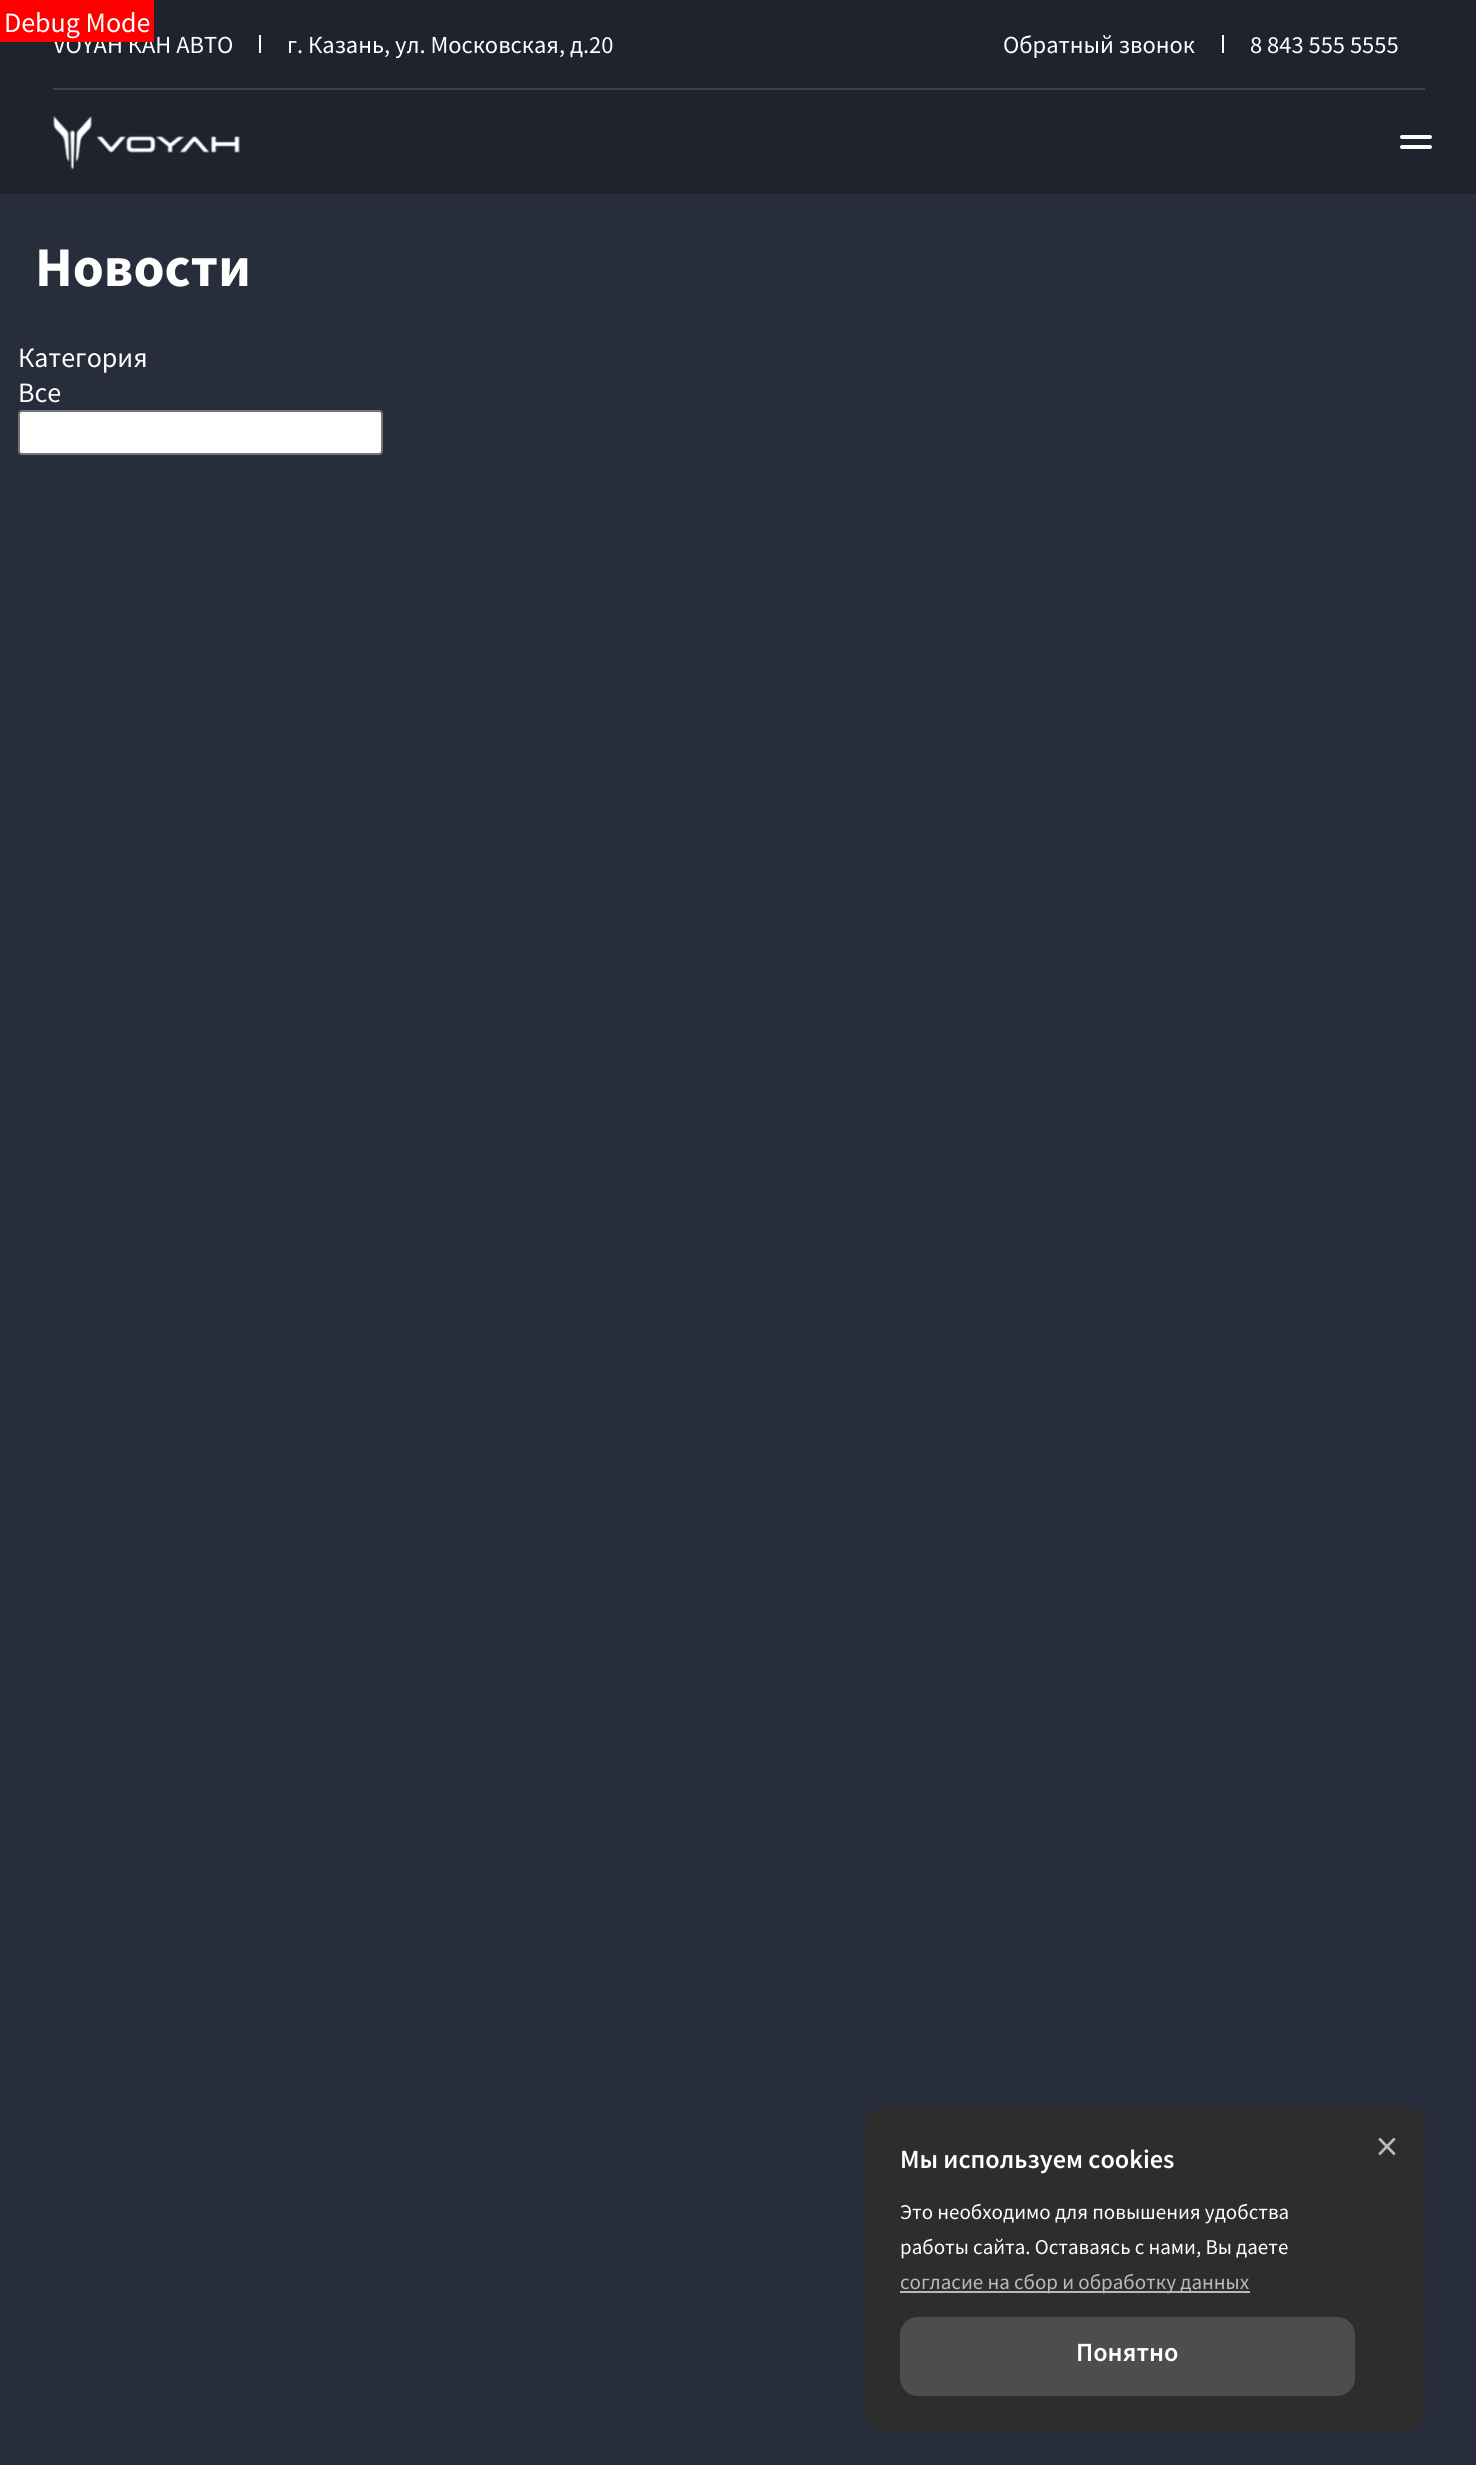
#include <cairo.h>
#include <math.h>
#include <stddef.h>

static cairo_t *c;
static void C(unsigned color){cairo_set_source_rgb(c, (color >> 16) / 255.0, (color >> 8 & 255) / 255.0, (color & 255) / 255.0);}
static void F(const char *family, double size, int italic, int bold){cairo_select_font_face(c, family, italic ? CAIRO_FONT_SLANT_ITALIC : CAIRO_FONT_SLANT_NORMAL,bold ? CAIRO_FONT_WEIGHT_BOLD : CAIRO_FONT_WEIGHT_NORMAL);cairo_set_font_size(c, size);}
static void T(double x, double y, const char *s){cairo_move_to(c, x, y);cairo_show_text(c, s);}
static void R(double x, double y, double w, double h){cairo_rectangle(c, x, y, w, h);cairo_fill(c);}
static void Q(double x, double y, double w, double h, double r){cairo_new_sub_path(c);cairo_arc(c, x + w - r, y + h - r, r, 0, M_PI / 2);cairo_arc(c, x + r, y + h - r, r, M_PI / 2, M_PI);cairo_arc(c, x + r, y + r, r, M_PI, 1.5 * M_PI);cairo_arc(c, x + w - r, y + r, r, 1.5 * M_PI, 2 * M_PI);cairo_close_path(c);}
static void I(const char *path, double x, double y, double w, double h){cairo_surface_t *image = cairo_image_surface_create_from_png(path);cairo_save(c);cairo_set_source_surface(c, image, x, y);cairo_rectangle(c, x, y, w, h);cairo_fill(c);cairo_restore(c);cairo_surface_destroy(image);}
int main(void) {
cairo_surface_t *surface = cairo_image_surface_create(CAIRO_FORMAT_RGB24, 1476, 2465);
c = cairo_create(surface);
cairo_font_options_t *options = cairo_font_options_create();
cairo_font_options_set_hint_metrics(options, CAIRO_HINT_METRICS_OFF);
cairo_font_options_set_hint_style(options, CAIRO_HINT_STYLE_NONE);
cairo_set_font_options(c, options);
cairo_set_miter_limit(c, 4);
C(0x282d3c);
cairo_paint(c);
C(0x1e232e);
R(0,0,1476,194);
F("Source Sans Pro",24.5,0,0);
C(0xffffff);
T(53,53,"VOYAH КАН АВТО");
C(0xff0000);
R(0,0,154,42);
F("Source Sans Pro",28,0,0);
C(0xffffff);
T(4,32,"Debug Mode");
I("1.png",53,116,188,54);
Q(1400,135,32,4,2);
cairo_fill(c);
Q(1400,145,32,4,2);
cairo_fill(c);
R(259,35,2,18);
F("Source Sans Pro",24.5,0,0);
T(287,53,"г. Казань, ул. Московская, д.20");
T(1003,53,"Обратный звонок");
R(1222,35,2,18);
T(1250,53,"8 843 555 5555");
C(0x424242);
R(53,88,1372,2);
F("Source Sans Pro",56,0,1);
C(0xffffff);
T(35,286,"Новости");
F("Source Sans Pro",28,0,0);
T(18,367,"Категория");
T(18,402,"Все");
Q(19,411,363,43,3);
cairo_fill_preserve(c);
C(0x767676);
cairo_stroke(c);
C(0x2e2d2d);
Q(865,2107,560,324,18);
cairo_fill(c);
F("Source Sans Pro",44,0,0);
C(0xbbb9b9);
T(1376,2161,"×");
F("Source Sans Pro SemiBold",26.25,0,0);
C(0xffffff);
T(900,2168,"Мы используем cookies");
F("Source Sans Pro",21,0,0);
T(900,2219,"Это необходимо для повышения удобства");
T(900,2254,"работы сайта. Оставаясь с нами, Вы даете");
C(0xbbb9b9);
R(900,2291,350,2);
T(900,2289,"согласие на сбор и обработку данных");
C(0x4d4d4d);
Q(900,2317,455,79,18);
cairo_fill(c);
F("Source Sans Pro SemiBold",26.25,0,0);
C(0xffffff);
T(1076,2361,"Понятно");
cairo_surface_write_to_png(surface, "o.png");
cairo_font_options_destroy(options);
cairo_destroy(c);
cairo_surface_destroy(surface);
return 0;
}
